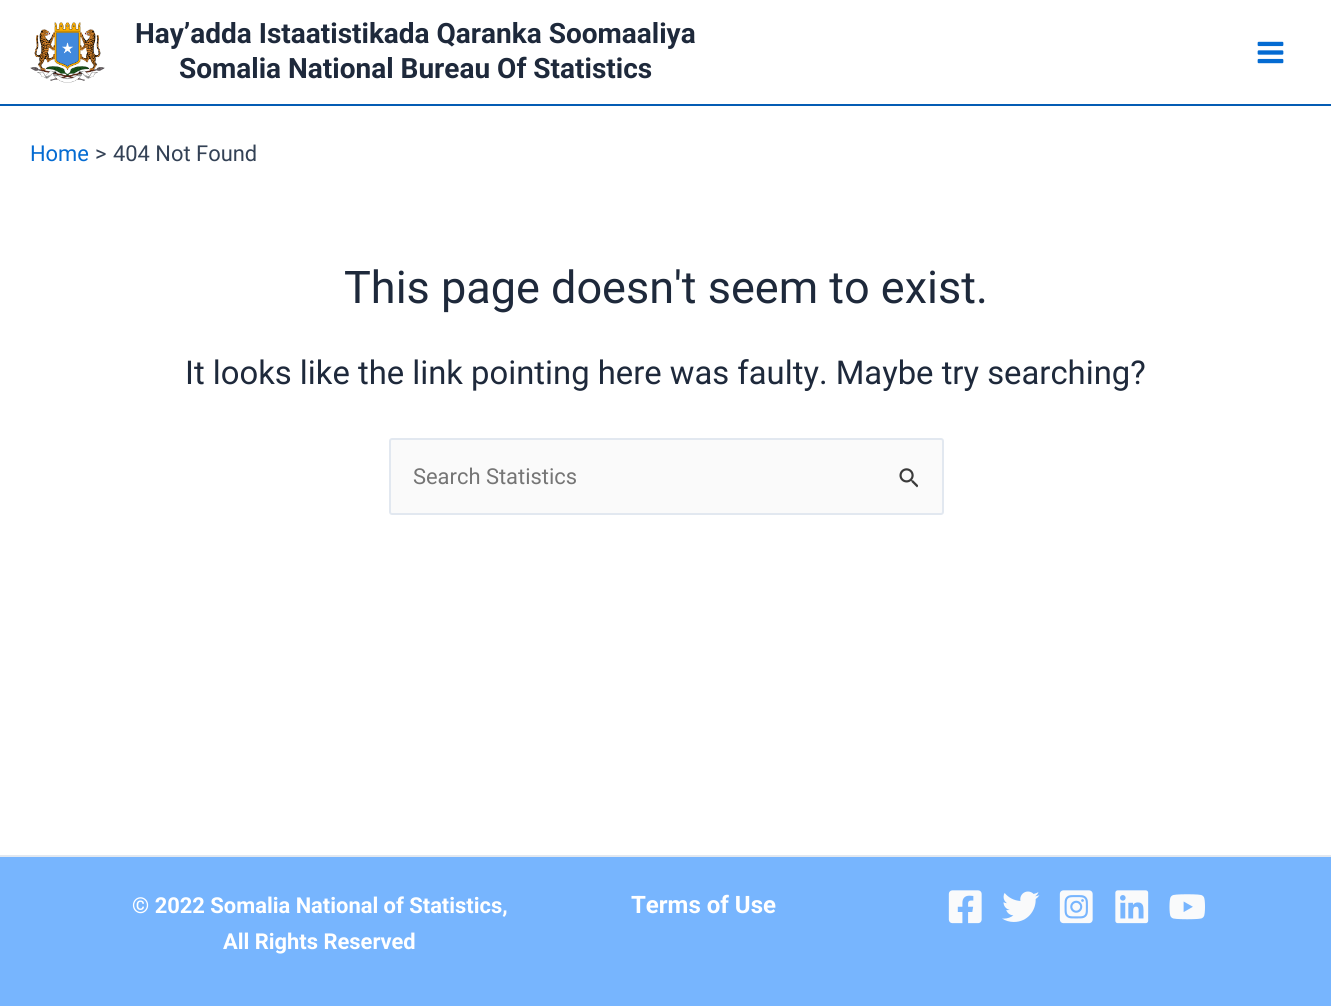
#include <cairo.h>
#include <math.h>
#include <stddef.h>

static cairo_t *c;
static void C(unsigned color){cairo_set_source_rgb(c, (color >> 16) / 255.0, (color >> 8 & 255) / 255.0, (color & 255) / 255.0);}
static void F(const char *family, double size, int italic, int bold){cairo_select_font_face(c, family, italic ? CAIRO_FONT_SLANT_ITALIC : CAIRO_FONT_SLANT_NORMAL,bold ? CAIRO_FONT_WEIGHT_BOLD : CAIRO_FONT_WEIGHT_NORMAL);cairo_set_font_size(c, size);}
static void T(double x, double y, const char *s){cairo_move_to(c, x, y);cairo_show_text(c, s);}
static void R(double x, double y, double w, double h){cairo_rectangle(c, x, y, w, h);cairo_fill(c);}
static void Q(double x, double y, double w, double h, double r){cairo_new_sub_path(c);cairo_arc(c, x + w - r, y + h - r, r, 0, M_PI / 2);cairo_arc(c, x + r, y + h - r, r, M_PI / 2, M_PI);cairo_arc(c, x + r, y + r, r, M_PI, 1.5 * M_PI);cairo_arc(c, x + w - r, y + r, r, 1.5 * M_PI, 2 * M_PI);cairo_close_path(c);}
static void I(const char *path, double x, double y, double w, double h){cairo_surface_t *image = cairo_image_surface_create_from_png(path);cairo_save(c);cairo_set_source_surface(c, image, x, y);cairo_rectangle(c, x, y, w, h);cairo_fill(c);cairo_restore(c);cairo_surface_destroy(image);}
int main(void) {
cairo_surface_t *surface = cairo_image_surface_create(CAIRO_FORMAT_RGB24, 1331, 1006);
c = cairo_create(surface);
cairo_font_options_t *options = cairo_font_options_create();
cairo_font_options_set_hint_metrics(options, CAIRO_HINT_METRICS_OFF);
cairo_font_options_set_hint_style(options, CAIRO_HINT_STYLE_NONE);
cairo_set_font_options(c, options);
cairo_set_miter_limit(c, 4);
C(0xffffff);
cairo_paint(c);
C(0x045cb4);
R(0,104,1331,2);
I("1.png",30,22,75,61);
F("Roboto",28,0,1);
C(0x1e293b);
T(135,43,"Hay’adda Istaatistikada Qaranka Soomaaliya");
T(179,78,"Somalia National Bureau Of Statistics");
I("2.png",1257,41,27,23);
F("Roboto",21.9,0,0);
C(0x046bd2);
T(30,161,"Home");
C(0x334155);
T(95,161,">");
T(113,161,"404 Not Found");
F("Roboto",45,0,0);
C(0x1e293b);
T(344,303,"This page doesn't seem to exist.");
F("Roboto",32.8,0,0);
T(185,384,"It looks like the link pointing here was faulty. Maybe try searching?");
C(0xfafafa);
Q(390,439,553,75,2);
cairo_fill_preserve(c);
C(0xe2e8f0);
cairo_stroke(c);
F("Roboto",21.9,0,0);
C(0x757575);
T(413,484,"Search Statistics");
I("3.png",899,468,19,20);
C(0x77b5fe);
R(0,857,1331,149);
C(0xe2e8f0);
R(0,855,1331,2);
F("Roboto",21.9,0,1);
C(0xffffff);
T(132,913,"© 2022 Somalia National of Statistics,");
T(223,949,"All Rights Reserved");
F("Roboto",24,0,1);
T(631,913,"Terms of Use");
I("4.png",948,890,34,34);
I("5.png",1002,891,38,31);
I("6.png",1059,890,34,34);
I("7.png",1115,890,34,34);
I("8.png",1169,894,36,26);
cairo_surface_write_to_png(surface, "o.png");
cairo_font_options_destroy(options);
cairo_destroy(c);
cairo_surface_destroy(surface);
return 0;
}
